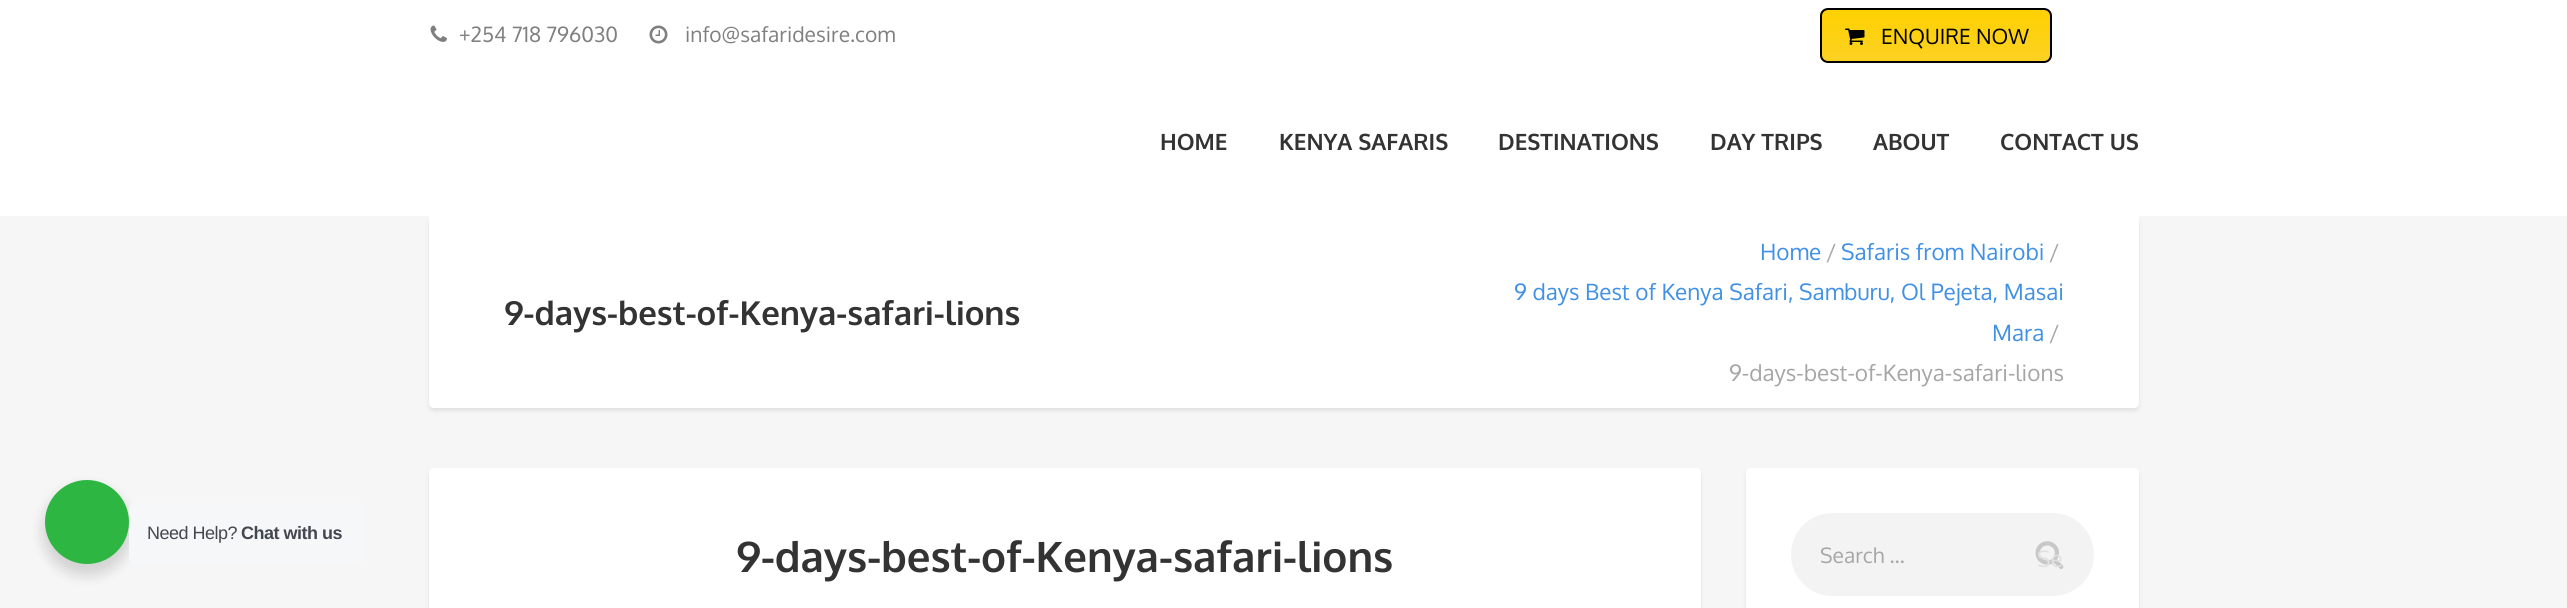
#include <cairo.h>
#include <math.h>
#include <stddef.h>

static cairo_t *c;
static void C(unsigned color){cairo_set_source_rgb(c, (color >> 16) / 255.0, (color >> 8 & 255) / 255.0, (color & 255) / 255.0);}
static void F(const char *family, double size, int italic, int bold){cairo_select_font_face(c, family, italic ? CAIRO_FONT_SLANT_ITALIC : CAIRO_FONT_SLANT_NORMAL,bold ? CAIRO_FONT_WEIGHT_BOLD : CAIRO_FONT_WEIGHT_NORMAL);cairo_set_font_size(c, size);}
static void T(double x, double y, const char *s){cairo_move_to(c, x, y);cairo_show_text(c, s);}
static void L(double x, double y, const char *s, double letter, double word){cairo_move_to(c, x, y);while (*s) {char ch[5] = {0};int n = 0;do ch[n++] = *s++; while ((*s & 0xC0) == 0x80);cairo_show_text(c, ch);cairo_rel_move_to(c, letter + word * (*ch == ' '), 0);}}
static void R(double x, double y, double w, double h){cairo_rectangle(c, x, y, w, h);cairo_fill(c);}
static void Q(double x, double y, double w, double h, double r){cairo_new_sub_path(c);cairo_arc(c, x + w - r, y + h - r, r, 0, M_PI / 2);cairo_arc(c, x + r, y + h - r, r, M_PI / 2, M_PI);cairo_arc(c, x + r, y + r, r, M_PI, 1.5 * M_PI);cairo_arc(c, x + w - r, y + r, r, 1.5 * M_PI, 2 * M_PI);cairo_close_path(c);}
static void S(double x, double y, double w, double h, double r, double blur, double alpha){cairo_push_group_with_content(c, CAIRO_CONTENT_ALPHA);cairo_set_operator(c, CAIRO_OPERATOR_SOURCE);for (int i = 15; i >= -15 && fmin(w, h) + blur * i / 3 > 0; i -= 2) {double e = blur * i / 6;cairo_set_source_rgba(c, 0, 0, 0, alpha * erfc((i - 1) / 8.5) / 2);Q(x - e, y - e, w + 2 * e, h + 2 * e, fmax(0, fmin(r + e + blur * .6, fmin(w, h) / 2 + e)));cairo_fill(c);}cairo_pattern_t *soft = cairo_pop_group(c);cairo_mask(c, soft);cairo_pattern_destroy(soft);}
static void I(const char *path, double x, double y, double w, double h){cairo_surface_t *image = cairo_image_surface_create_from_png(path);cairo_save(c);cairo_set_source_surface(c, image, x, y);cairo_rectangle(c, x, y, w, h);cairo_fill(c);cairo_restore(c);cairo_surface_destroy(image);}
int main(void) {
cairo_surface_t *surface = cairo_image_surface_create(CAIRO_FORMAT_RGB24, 2567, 608);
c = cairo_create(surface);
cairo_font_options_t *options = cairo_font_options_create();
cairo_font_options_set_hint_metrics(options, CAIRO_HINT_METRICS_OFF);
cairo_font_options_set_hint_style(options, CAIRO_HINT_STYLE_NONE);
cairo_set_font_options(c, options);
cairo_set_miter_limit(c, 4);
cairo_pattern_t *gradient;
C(0xf6f6f6);
cairo_paint(c);
C(0x000000);
S(42,486,90,90,45,6,.14);
C(0x2db742);
cairo_arc(c,87,522,42,0,2 * M_PI);
cairo_fill(c);
C(0xf5f7f9);
Q(129,503,234,61,6);
cairo_fill(c);
F("Liberation Sans",18,0,0);
C(0x43474e);
L(147,539,"Need Help?",-.5,0);
F("Liberation Sans",18,0,1);
L(241,539,"Chat with us",-.5,0);
C(0xffffff);
R(0,0,2567,216);
I("1.png",430,25,17,17);
F("Oxygen",21,0,0);
C(0x808080);
T(459,42,"+254 718 796030");
I("2.png",649,25,19,19);
T(685,42,"info@safaridesire.com");
cairo_save(c);
Q(1820,8,232,55,8);
cairo_clip(c);
gradient = cairo_pattern_create_linear(1936,9,1936,62);
cairo_pattern_add_color_stop_rgba(gradient,0,0.996,0.82,0.004,1);
cairo_pattern_add_color_stop_rgba(gradient,1,0.992,0.82,0.137,1);
cairo_set_source(c,gradient);
cairo_pattern_destroy(gradient);
R(1820,9,232,53);
cairo_restore(c);
Q(1821,9,230,53,7);
C(0x000000);
cairo_stroke(c);
I("3.png",1845,28,20,17);
T(1881,44,"ENQUIRE NOW");
F("Oxygen",22.5,0,1);
C(0x333333);
T(1160,150,"HOME");
T(1279,150,"KENYA SAFARIS");
T(1498,150,"DESTINATIONS");
T(1710,150,"DAY TRIPS");
T(1873,150,"ABOUT");
T(2000,150,"CONTACT US");
C(0x000000);
S(429,219,1710,192,5,2,.09);
C(0xffffff);
cairo_new_path(c);
cairo_move_to(c,429,216);
cairo_line_to(c,2139,216);
cairo_line_to(c,2139,403);
cairo_curve_to(c,2139,406,2137,408,2134,408);
cairo_line_to(c,434,408);
cairo_curve_to(c,431,408,429,406,429,403);
cairo_close_path(c);
cairo_fill(c);
F("Oxygen",33,0,1);
C(0x333333);
T(504,325,"9-days-best-of-Kenya-safari-lions");
F("Oxygen",22.5,0,0);
C(0x4090e5);
T(1760,260,"Home");
C(0xa6a6a6);
T(1826,260,"/");
C(0x4090e5);
T(1841,260,"Safaris from Nairobi");
C(0xa6a6a6);
T(2049,260,"/");
C(0x4090e5);
T(1514,300,"9 days Best of Kenya Safari, Samburu, Ol Pejeta, Masai");
T(1992,341,"Mara");
C(0xa6a6a6);
T(2049,341,"/");
T(1729,381,"9-days-best-of-Kenya-safari-lions");
C(0x000000);
S(429,471,1272,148,5,2,.09);
C(0xffffff);
Q(429,468,1272,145,5);
cairo_fill(c);
F("Oxygen",42,0,1);
C(0x333333);
T(736,572,"9-days-best-of-Kenya-safari-lions");
C(0x000000);
S(1746,471,393,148,5,2,.09);
C(0xffffff);
Q(1746,468,393,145,5);
cairo_fill(c);
C(0xf3f3f3);
Q(1791,513,303,83,41.5);
cairo_fill(c);
F("Oxygen",21,0,0);
C(0xa6a6a6);
T(1820,563,"Search …");
I("4.png",2035,541,29,28);
F("Oxygen",22.5,0,0);
C(0xe1e1e1);
T(2037,567,"Se");
cairo_surface_write_to_png(surface, "o.png");
cairo_font_options_destroy(options);
cairo_destroy(c);
cairo_surface_destroy(surface);
return 0;
}
